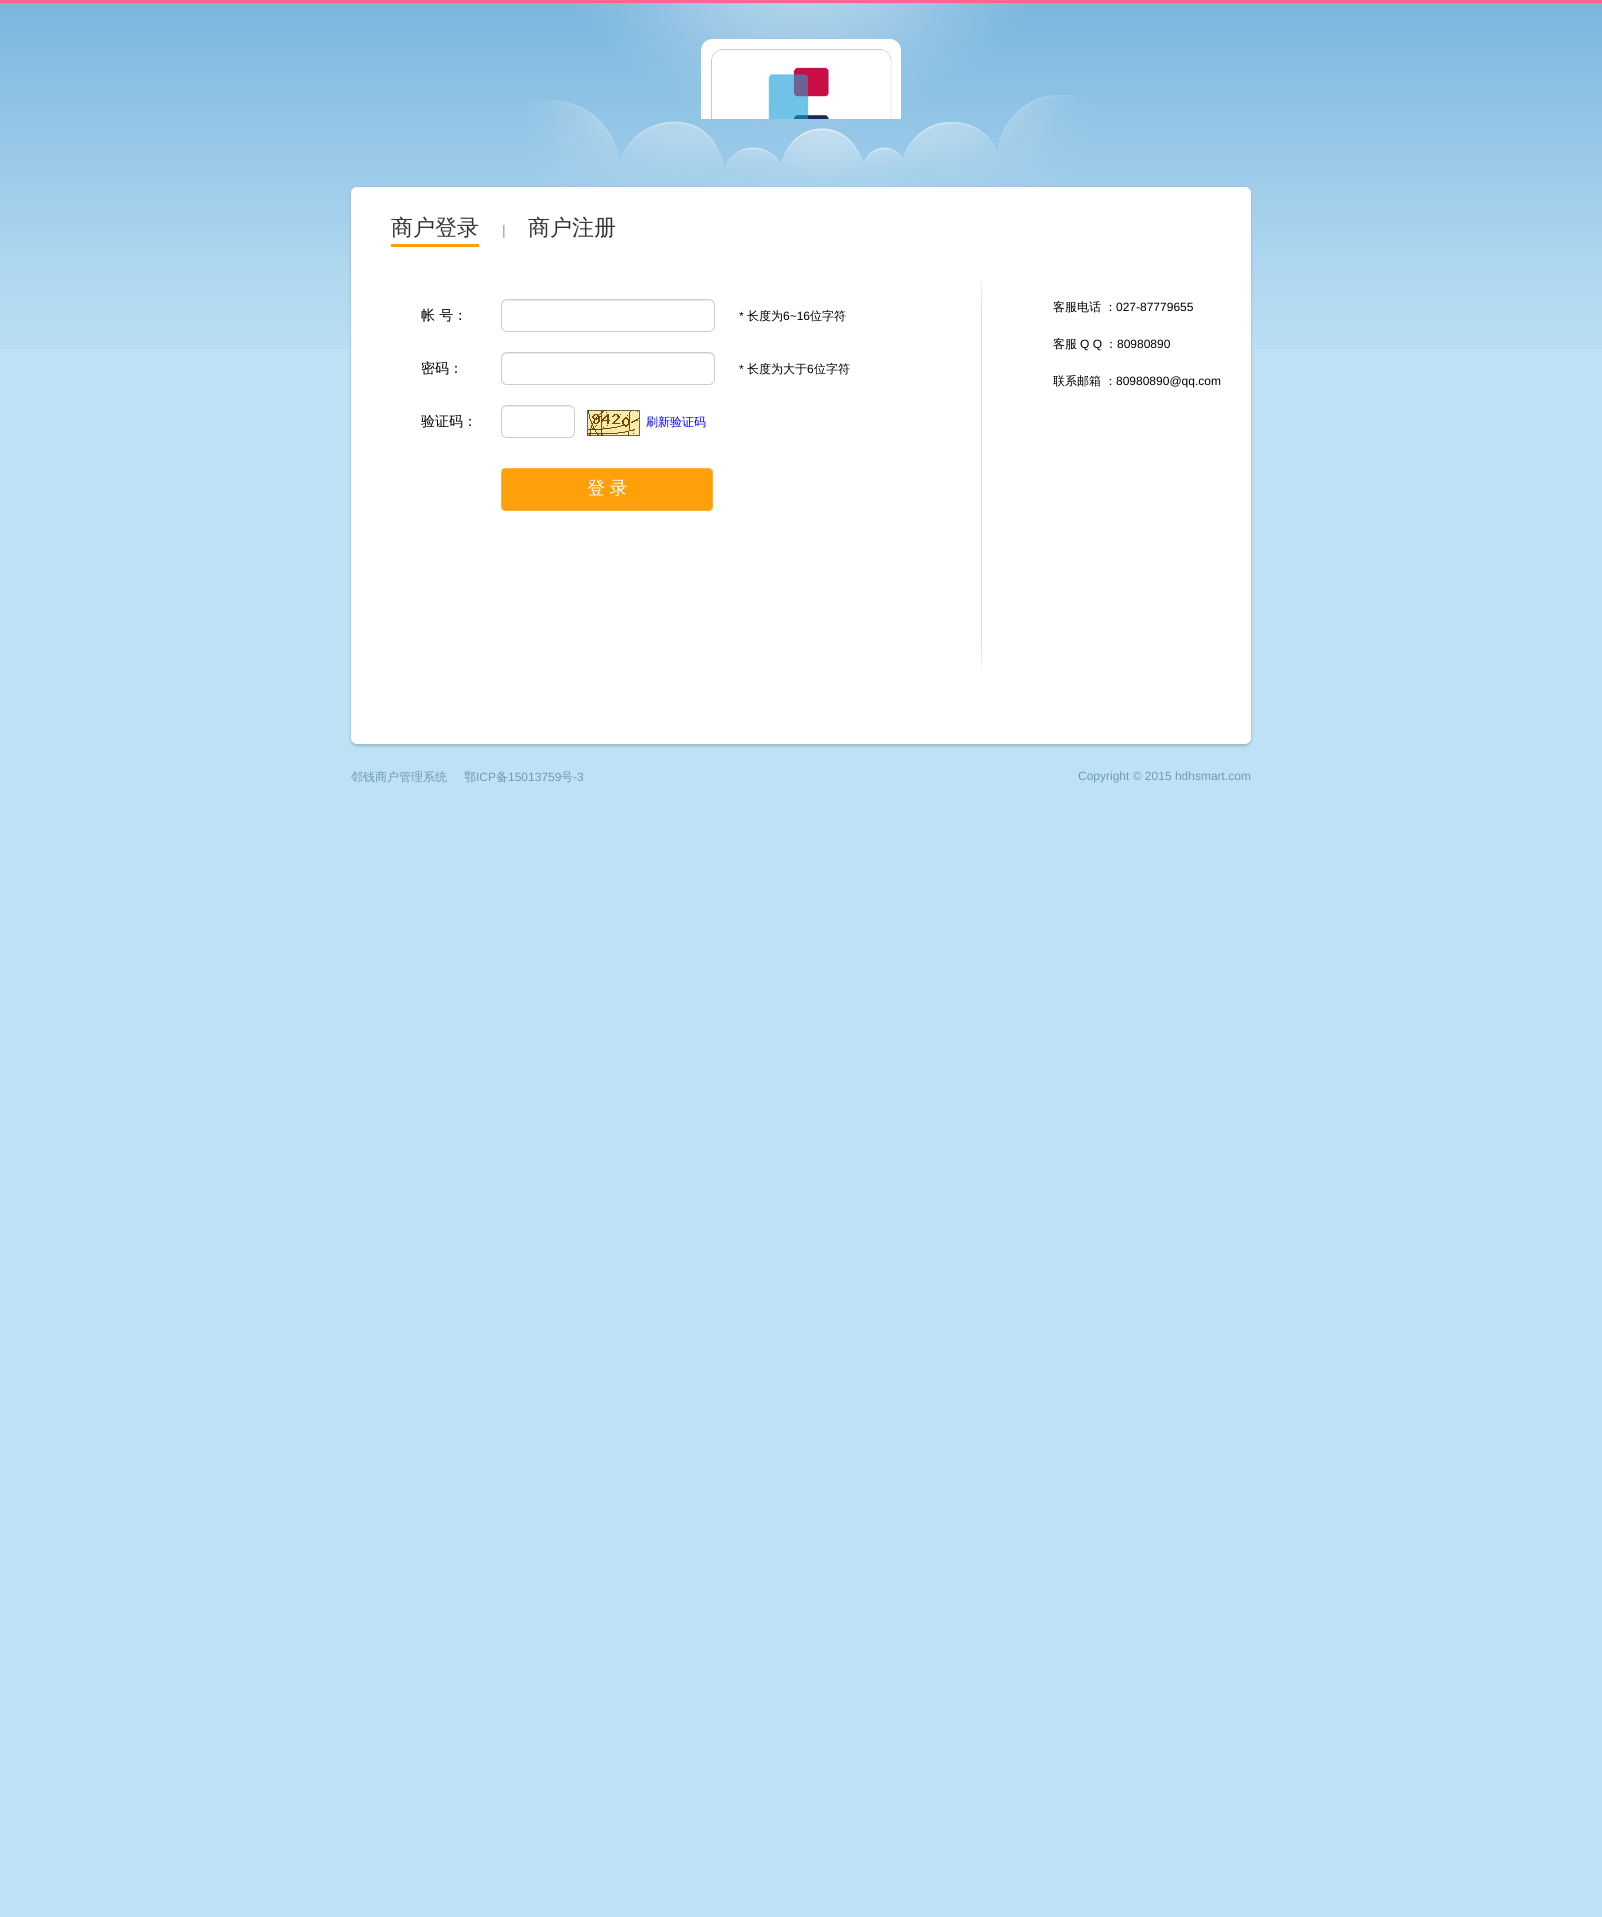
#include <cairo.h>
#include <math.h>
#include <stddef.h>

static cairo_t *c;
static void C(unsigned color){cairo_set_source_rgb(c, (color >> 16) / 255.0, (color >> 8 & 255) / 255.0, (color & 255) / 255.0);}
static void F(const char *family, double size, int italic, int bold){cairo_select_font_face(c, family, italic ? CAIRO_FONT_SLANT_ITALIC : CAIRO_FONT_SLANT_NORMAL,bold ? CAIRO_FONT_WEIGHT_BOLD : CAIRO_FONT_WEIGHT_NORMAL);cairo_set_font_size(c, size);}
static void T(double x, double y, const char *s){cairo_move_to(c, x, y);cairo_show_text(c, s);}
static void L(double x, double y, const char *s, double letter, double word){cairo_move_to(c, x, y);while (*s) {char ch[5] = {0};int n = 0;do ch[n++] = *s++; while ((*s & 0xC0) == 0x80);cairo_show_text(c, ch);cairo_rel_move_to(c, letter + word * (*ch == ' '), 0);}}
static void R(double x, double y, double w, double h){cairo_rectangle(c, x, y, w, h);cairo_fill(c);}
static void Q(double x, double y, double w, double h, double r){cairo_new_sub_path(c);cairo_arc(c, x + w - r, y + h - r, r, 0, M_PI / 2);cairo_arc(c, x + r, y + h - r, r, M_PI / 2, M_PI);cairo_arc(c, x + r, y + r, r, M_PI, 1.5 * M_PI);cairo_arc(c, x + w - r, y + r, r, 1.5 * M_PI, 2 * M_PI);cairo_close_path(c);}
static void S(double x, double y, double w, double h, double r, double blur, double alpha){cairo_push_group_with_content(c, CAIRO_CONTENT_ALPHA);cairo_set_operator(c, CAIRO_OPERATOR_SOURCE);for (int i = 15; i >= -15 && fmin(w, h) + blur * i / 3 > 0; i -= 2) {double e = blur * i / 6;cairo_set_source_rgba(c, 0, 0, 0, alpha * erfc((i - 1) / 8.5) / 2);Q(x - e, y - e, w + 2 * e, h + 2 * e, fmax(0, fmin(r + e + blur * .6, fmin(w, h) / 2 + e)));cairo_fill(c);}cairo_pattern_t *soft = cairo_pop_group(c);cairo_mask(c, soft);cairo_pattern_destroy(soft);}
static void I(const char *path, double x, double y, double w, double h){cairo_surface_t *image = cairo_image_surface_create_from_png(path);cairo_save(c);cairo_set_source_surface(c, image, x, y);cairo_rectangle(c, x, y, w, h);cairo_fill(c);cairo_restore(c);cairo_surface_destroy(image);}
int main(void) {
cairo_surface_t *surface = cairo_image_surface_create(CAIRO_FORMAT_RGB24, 1602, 1917);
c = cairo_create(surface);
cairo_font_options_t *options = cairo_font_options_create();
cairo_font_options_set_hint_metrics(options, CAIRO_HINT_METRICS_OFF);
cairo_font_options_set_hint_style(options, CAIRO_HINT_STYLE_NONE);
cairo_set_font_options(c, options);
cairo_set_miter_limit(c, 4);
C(0xbee1f5);
cairo_paint(c);
I("1.png",0,3,1602,346);
C(0xff658e);
R(0,0,1602,3);
I("2.png",355,3,892,184);
I("3.png",701,39,200,80);
C(0x98b4c4);
S(351,189,900,557,6,1.5,1);
C(0xffffff);
Q(351,187,900,557,6);
cairo_fill(c);
C(0xffa00a);
R(391,244,88,3);
F("WenQuanYi Zen Hei Medium",22,0,0);
C(0x333333);
T(391,235,"商户登录");
F("Liberation Sans",14,0,0);
C(0x999999);
T(502,235,"|");
F("WenQuanYi Zen Hei Medium",22,0,0);
C(0x333333);
T(528,235,"商户注册");
I("4.png",981,278,1,394);
F("WenQuanYi Zen Hei Medium",14,0,0);
C(0x000000);
T(421,320,"帐 号：");
C(0xeaeaea);
cairo_new_path(c);
cairo_move_to(c,507,301);
cairo_line_to(c,709,301);
cairo_curve_to(c,712,301,714,303,714,306);
cairo_line_to(c,714,305);
cairo_curve_to(c,714,302,712,300,709,300);
cairo_line_to(c,507,300);
cairo_curve_to(c,504,300,502,302,502,305);
cairo_line_to(c,502,306);
cairo_curve_to(c,502,303,504,301,507,301);
cairo_close_path(c);
cairo_fill(c);
Q(501.5,299.5,213,32,5.5);
C(0xcccccc);
cairo_set_line_width(c,1);
cairo_stroke(c);
F("Liberation Sans",12,0,0);
C(0x000000);
T(739,320,"*");
F("WenQuanYi Zen Hei Medium",12,0,0);
T(747,320,"长度为");
F("Liberation Sans",12,0,0);
T(783,320,"6~16");
F("WenQuanYi Zen Hei Medium",12,0,0);
T(810,320,"位字符");
F("WenQuanYi Zen Hei Medium",14,0,0);
T(421,373,"密码：");
C(0xeaeaea);
cairo_new_path(c);
cairo_move_to(c,507,354);
cairo_line_to(c,709,354);
cairo_curve_to(c,712,354,714,356,714,359);
cairo_line_to(c,714,358);
cairo_curve_to(c,714,355,712,353,709,353);
cairo_line_to(c,507,353);
cairo_curve_to(c,504,353,502,355,502,358);
cairo_line_to(c,502,359);
cairo_curve_to(c,502,356,504,354,507,354);
cairo_close_path(c);
cairo_fill(c);
Q(501.5,352.5,213,32,5.5);
C(0xcccccc);
cairo_stroke(c);
F("Liberation Sans",12,0,0);
C(0x000000);
T(739,373,"*");
F("WenQuanYi Zen Hei Medium",12,0,0);
T(747,373,"长度为大于");
F("Liberation Sans",12,0,0);
T(807,373,"6");
F("WenQuanYi Zen Hei Medium",12,0,0);
T(814,373,"位字符");
F("WenQuanYi Zen Hei Medium",14,0,0);
T(421,426,"验证码：");
C(0xeaeaea);
cairo_new_path(c);
cairo_move_to(c,507,407);
cairo_line_to(c,569,407);
cairo_curve_to(c,572,407,574,409,574,412);
cairo_curve_to(c,574,404,564,406,559,406);
cairo_line_to(c,517,406);
cairo_curve_to(c,512,406,502,404,502,412);
cairo_curve_to(c,502,409,504,407,507,407);
cairo_close_path(c);
cairo_fill(c);
Q(501.5,405.5,73,32,5.5);
C(0xcccccc);
cairo_stroke(c);
I("5.png",587,410,53,26);
F("WenQuanYi Zen Hei Medium",12,0,0);
C(0x0000ee);
T(646,426,"刷新验证码");
C(0xffa00a);
Q(501.5,468.5,211,42,3.5);
cairo_fill_preserve(c);
C(0xffb33b);
cairo_stroke(c);
F("WenQuanYi Zen Hei Medium",18,0,0);
C(0xffffff);
L(587,494,"登 录",0,-1);
F("WenQuanYi Zen Hei Medium",12,0,0);
C(0x000000);
T(1053,311,"客服电话 ：");
F("Liberation Sans",12,0,0);
T(1116,311,"027-87779655");
F("WenQuanYi Zen Hei Medium",12,0,0);
T(1053,348,"客服");
F("Liberation Sans",12,0,0);
T(1080,348,"Q Q");
F("WenQuanYi Zen Hei Medium",12,0,0);
T(1105,348,"：");
F("Liberation Sans",12,0,0);
T(1117,348,"80980890");
F("WenQuanYi Zen Hei Medium",12,0,0);
T(1053,385,"联系邮箱 ：");
F("Liberation Sans",12,0,0);
T(1116,385,"80980890@qq.com");
F("WenQuanYi Zen Hei Medium",12,0,0);
C(0x6e9ab8);
T(351,781,"邻钱商户管理系统");
T(464,781,"鄂");
F("Liberation Sans",12,0,0);
T(476,781,"ICP");
F("WenQuanYi Zen Hei Medium",12,0,0);
T(496,781,"备");
F("Liberation Sans",12,0,0);
T(508,781,"15013759");
F("WenQuanYi Zen Hei Medium",12,0,0);
T(561,781,"号");
F("Liberation Sans",12,0,0);
T(573,781,"-3");
T(1078,780,"Copyright © 2015 hdhsmart.com");
cairo_surface_write_to_png(surface, "o.png");
cairo_font_options_destroy(options);
cairo_destroy(c);
cairo_surface_destroy(surface);
return 0;
}
